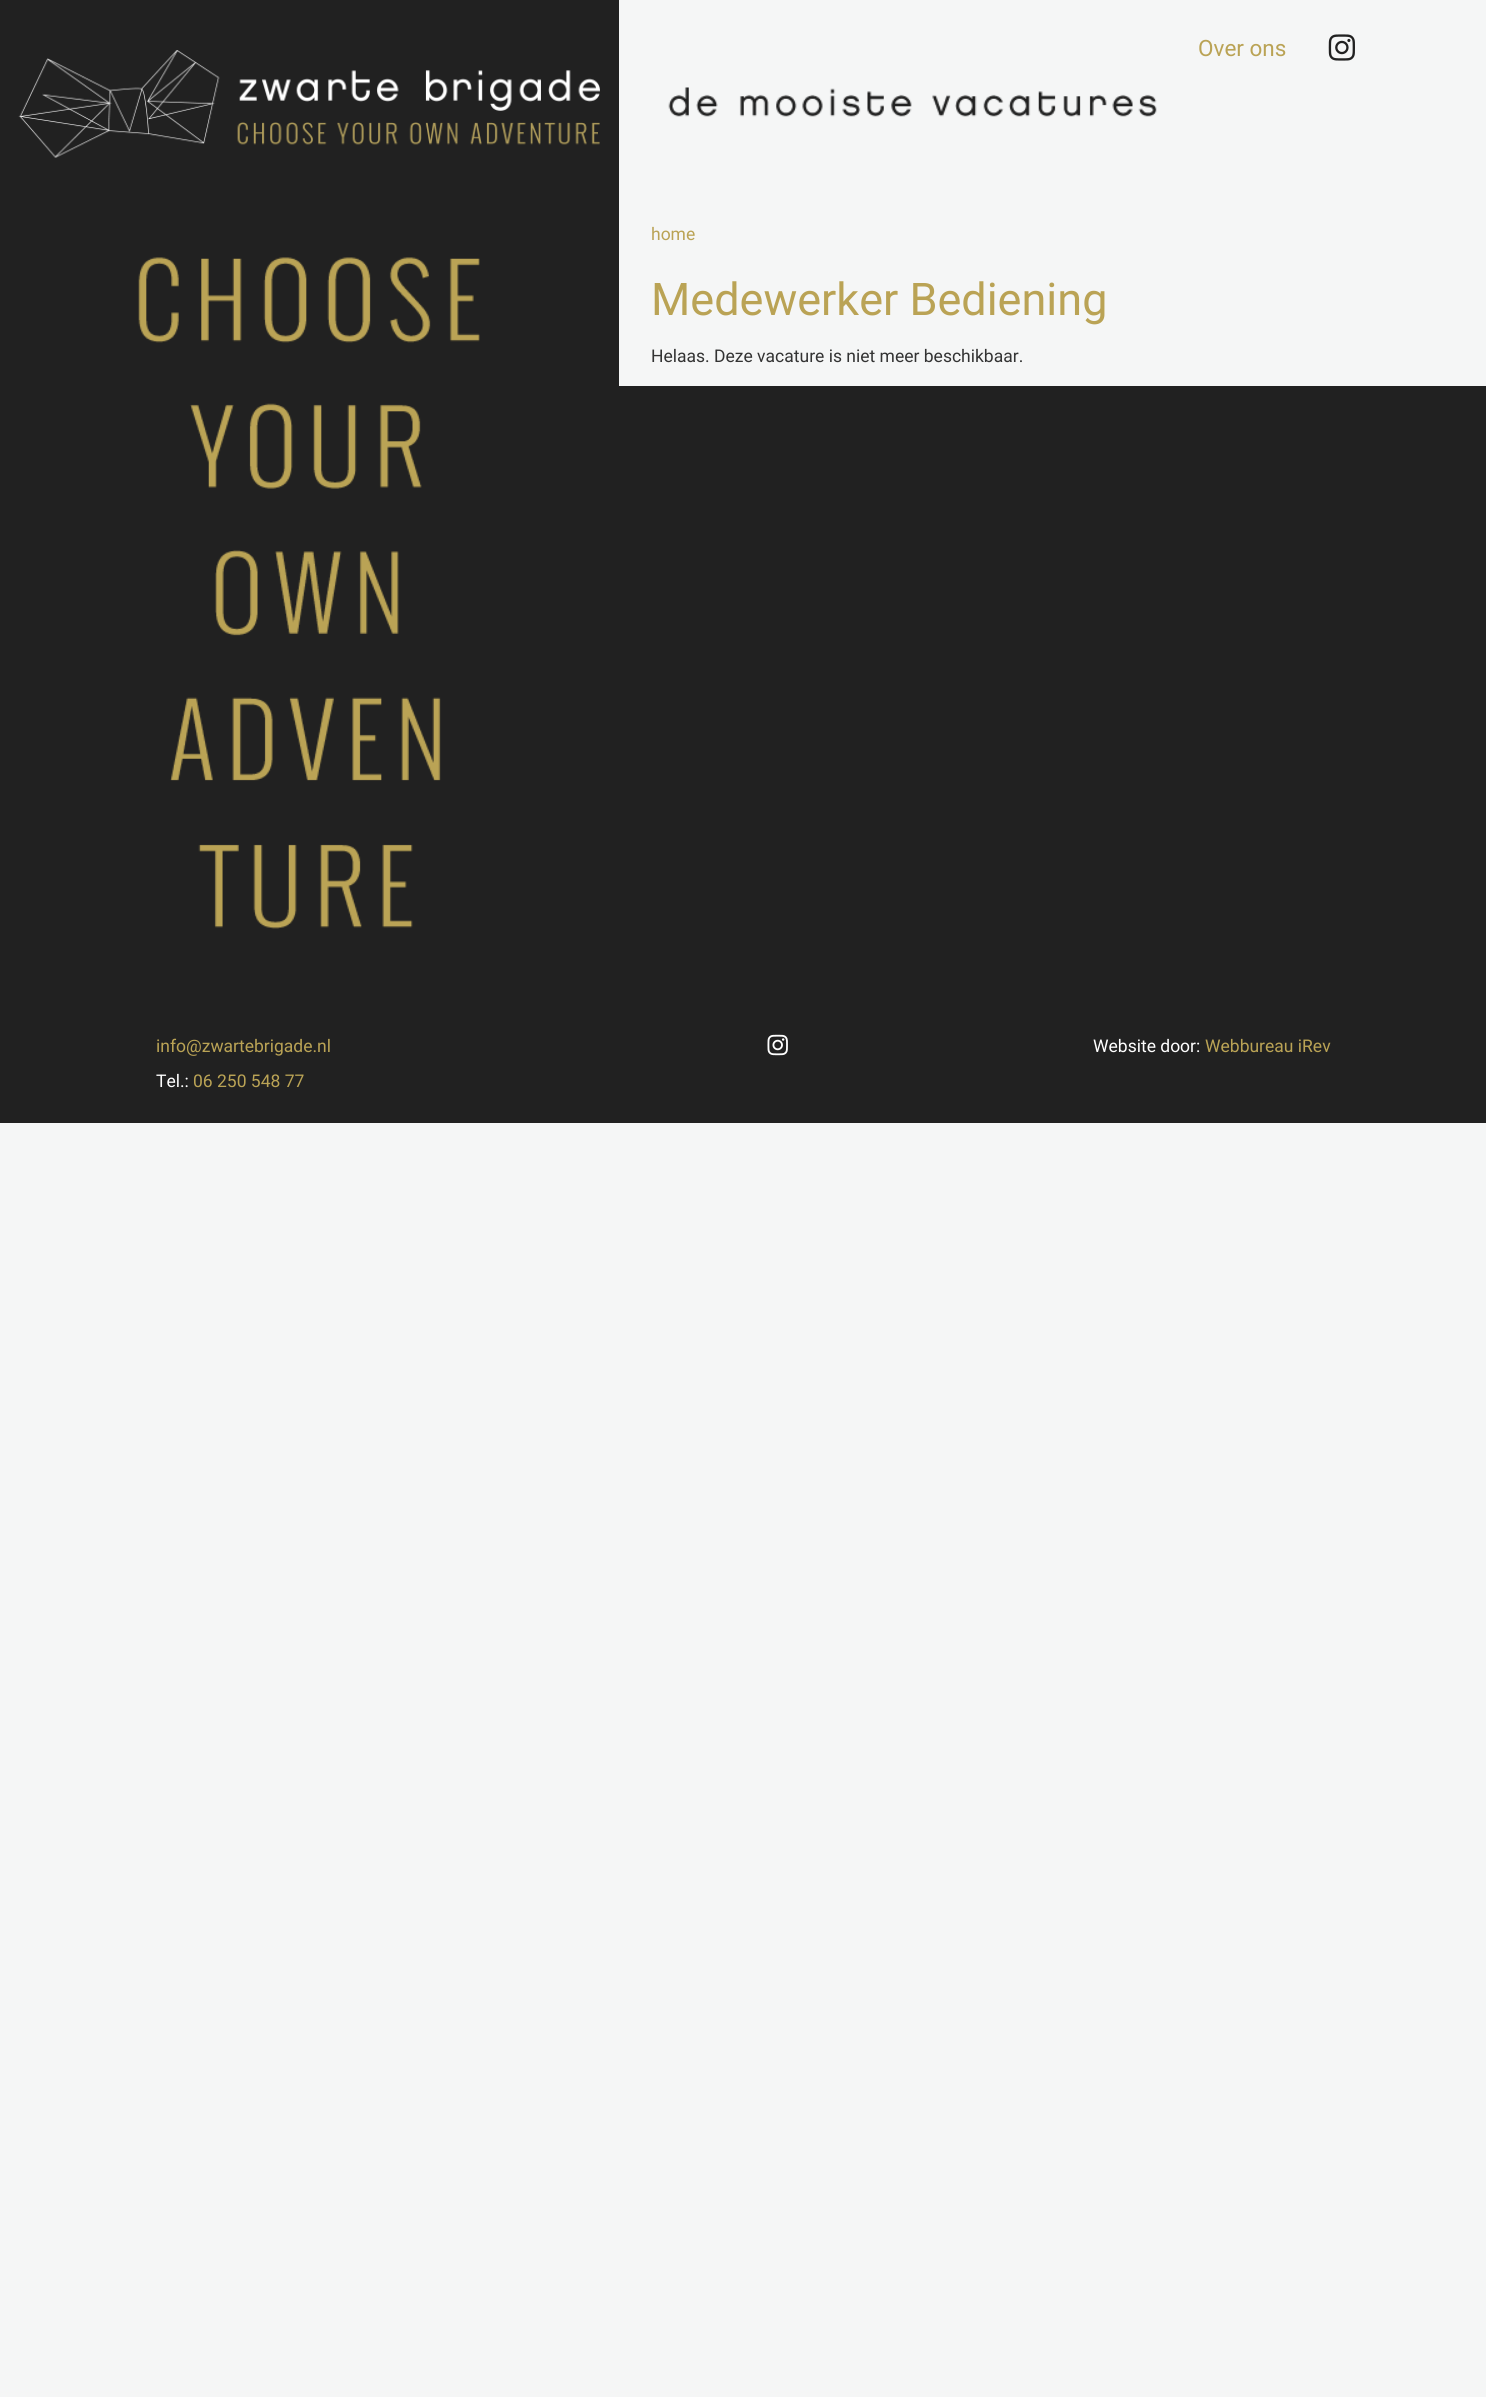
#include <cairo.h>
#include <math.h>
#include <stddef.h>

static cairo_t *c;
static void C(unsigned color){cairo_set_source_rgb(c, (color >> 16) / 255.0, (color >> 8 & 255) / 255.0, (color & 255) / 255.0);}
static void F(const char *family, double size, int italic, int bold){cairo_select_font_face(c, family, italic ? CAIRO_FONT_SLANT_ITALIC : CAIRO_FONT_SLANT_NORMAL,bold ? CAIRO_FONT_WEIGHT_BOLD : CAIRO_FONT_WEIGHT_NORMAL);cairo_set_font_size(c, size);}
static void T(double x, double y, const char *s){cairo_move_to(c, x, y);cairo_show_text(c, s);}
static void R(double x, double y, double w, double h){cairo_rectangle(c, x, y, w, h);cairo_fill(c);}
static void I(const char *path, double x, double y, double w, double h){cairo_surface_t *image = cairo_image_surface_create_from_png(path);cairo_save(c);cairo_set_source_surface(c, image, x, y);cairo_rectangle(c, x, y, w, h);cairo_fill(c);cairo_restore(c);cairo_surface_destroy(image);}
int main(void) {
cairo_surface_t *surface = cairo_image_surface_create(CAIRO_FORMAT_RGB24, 1486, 2397);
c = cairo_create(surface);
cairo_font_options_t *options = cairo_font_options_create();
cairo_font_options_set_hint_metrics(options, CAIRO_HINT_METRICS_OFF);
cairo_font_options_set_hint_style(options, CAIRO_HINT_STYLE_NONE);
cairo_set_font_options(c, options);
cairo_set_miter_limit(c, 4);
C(0xf5f6f6);
cairo_paint(c);
C(0x212121);
R(0,0,1486,1123);
I("1.png",18,50,582,108);
I("2.png",138,257,342,672);
C(0xf5f6f6);
R(619,0,867,386);
F("Roboto",22.5,0,0);
C(0xbaa355);
T(1198,56,"Over ons");
I("3.png",1328,34,27,27);
I("4.png",668,87,489,30);
F("Roboto",17.5,0,0);
T(651,240,"home");
F("Roboto",45,0,0);
T(651,315,"Medewerker Bediening");
F("Roboto",17.5,0,0);
C(0x333333);
T(651,362,"Helaas. Deze vacature is niet meer beschikbaar.");
C(0xbaa355);
T(156,1052,"info@zwartebrigade.nl");
C(0xffffff);
T(156,1087,"Tel.:");
C(0xbaa355);
T(193,1087,"06 250 548 77");
I("5.png",767,1034,21,22);
C(0xffffff);
T(1093,1052,"Website door:");
C(0xbaa355);
T(1205,1052,"Webbureau iRev");
cairo_surface_write_to_png(surface, "o.png");
cairo_font_options_destroy(options);
cairo_destroy(c);
cairo_surface_destroy(surface);
return 0;
}
